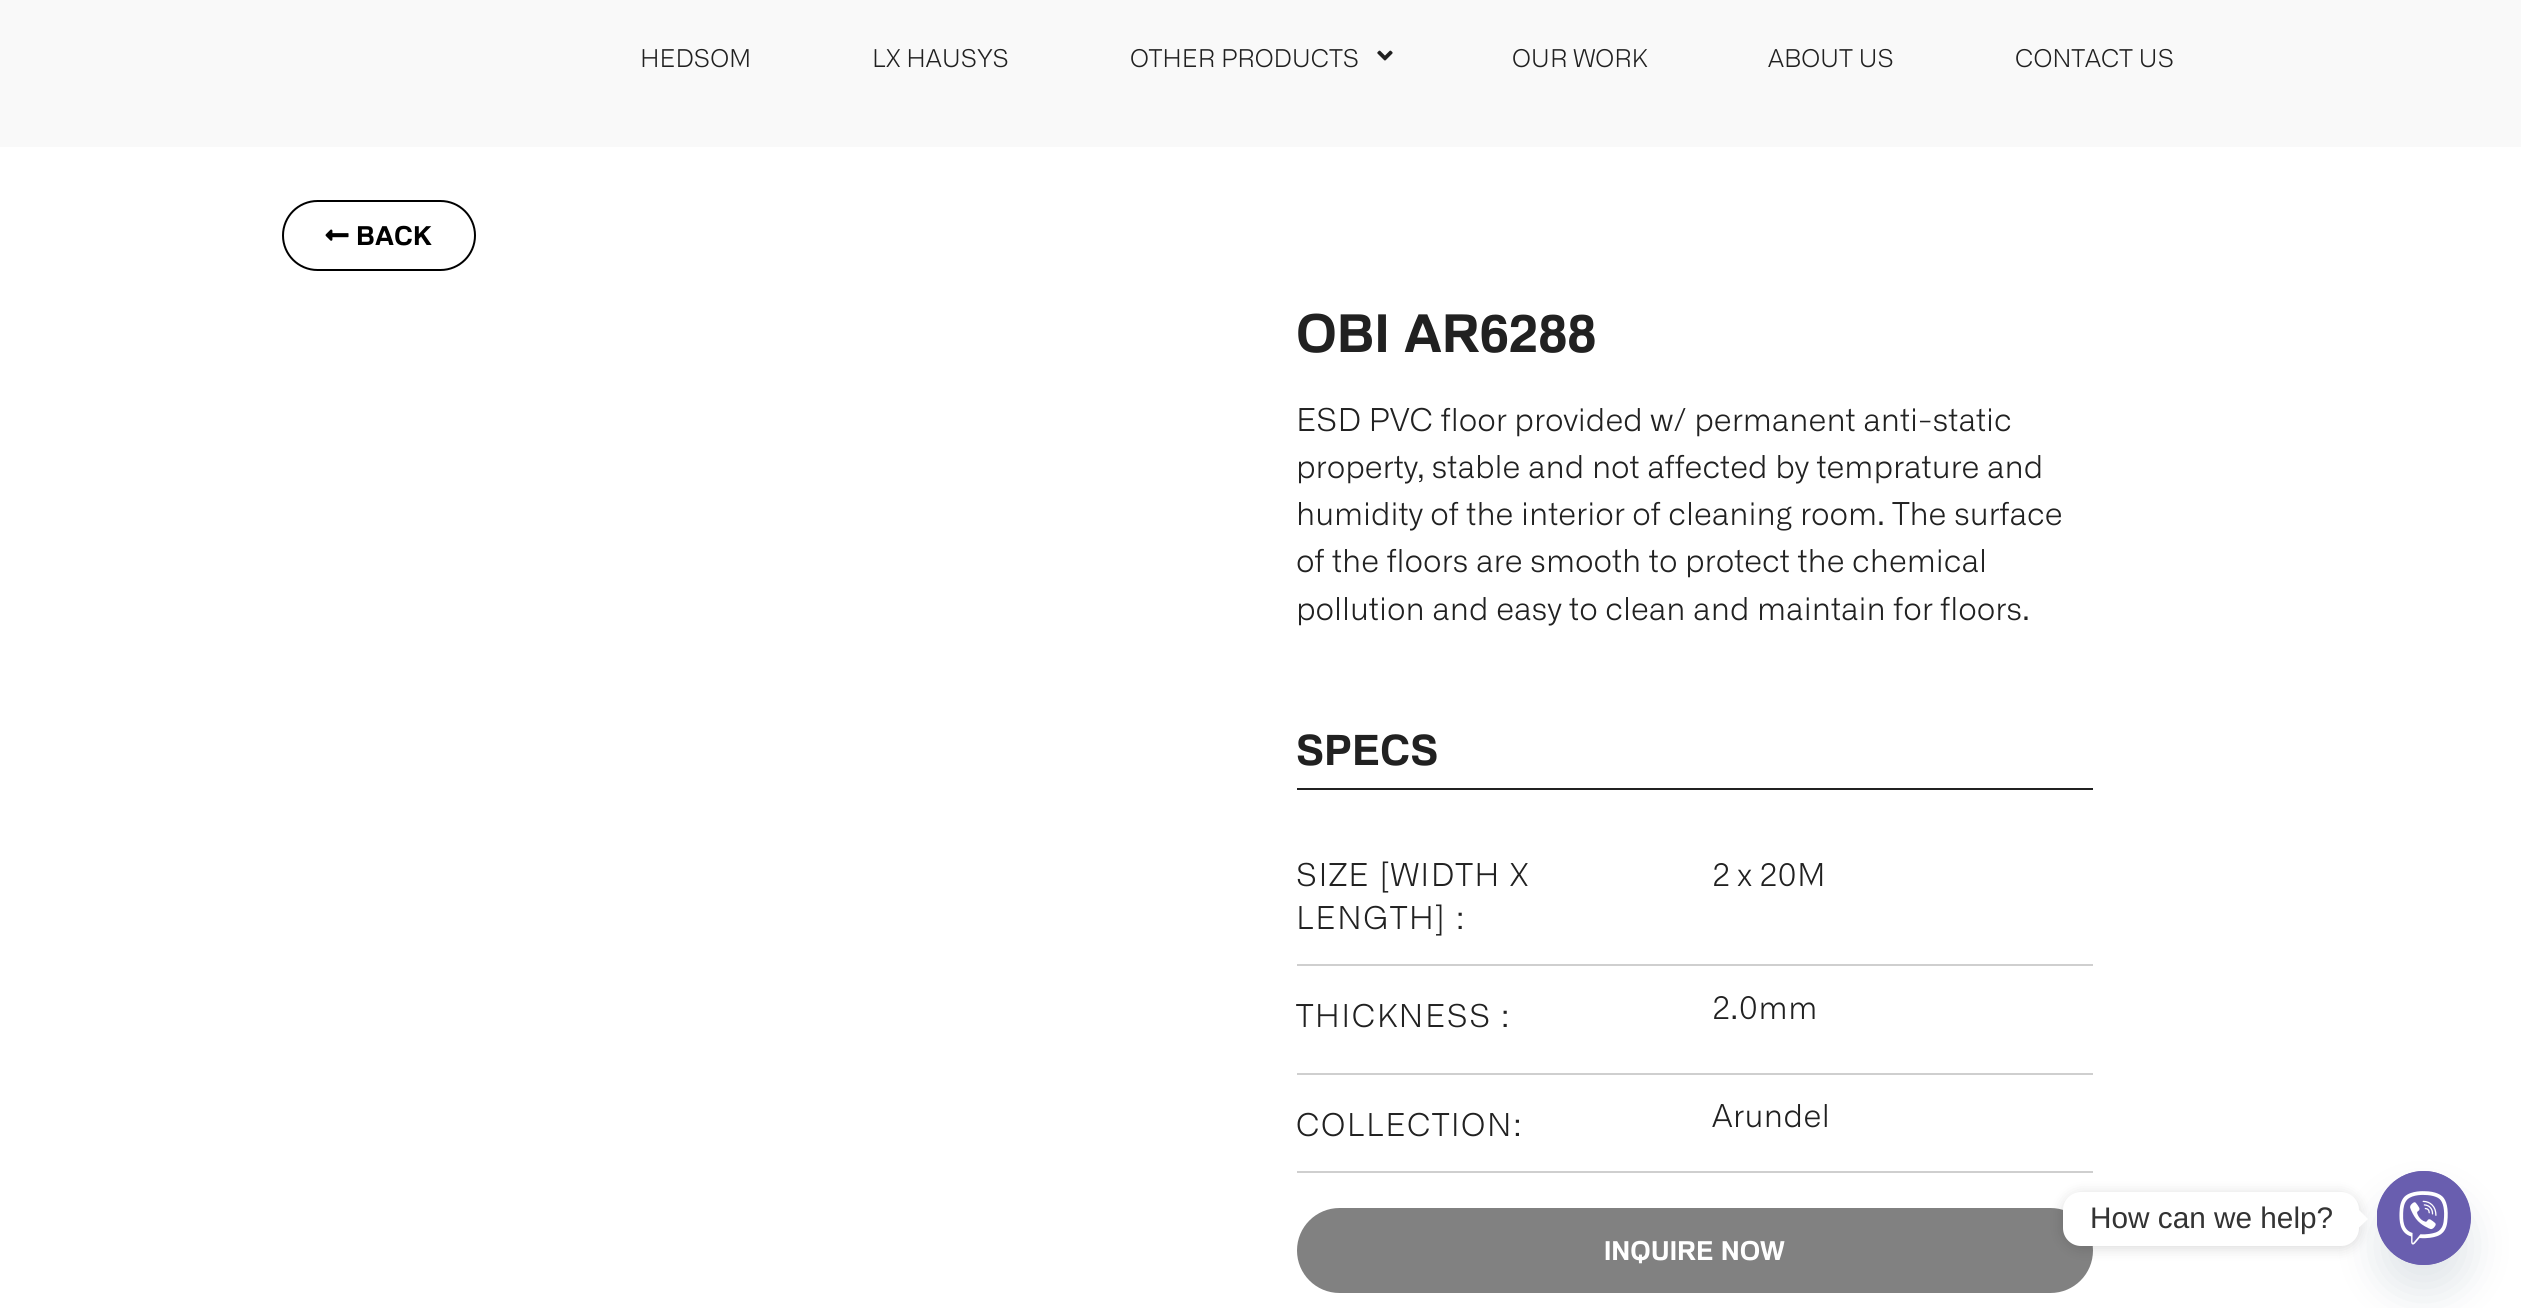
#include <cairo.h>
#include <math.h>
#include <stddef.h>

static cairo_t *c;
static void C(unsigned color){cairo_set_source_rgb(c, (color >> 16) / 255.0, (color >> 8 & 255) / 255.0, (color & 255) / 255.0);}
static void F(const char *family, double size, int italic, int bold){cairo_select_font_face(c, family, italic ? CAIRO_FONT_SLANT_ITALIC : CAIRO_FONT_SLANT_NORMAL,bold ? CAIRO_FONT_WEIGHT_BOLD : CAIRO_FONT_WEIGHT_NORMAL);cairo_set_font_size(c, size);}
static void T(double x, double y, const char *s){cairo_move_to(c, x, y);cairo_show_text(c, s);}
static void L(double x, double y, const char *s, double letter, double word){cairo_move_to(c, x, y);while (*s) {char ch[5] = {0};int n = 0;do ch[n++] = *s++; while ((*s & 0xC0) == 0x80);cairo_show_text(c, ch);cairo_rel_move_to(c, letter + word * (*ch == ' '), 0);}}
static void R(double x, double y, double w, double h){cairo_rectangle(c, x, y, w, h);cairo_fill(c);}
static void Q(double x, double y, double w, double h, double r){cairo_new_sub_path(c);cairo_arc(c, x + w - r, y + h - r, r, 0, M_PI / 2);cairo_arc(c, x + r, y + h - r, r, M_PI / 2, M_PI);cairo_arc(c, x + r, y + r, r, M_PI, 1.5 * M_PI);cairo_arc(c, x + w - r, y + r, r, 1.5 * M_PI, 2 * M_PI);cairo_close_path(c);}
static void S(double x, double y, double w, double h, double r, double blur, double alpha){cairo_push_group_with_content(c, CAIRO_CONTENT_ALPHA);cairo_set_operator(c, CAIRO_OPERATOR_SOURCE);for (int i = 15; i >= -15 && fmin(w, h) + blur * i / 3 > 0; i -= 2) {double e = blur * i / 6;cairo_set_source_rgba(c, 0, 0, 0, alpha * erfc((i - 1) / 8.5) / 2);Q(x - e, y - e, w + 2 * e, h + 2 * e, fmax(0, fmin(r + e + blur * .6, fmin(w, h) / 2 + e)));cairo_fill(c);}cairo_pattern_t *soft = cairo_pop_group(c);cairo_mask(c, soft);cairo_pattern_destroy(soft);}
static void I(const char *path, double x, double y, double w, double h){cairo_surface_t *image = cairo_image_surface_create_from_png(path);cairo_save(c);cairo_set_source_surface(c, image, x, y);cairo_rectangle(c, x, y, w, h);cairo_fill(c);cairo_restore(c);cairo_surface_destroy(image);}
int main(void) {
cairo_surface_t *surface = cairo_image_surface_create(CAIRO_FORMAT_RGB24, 2521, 1308);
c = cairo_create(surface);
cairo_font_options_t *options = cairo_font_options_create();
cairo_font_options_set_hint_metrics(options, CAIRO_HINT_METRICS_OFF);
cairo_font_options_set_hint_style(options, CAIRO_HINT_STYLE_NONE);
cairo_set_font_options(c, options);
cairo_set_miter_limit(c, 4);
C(0xffffff);
cairo_paint(c);
C(0xf9f9f9);
R(0,0,2521,147);
F("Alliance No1 Light",24.5,0,0);
C(0x212121);
T(640,67,"HEDSOM");
T(872,67,"LX HAUSYS");
T(1130,67,"OTHER PRODUCTS");
I("1.png",1377,50,16,11);
T(1512,67,"OUR WORK");
T(1768,67,"ABOUT US");
T(2015,67,"CONTACT US");
Q(283,201,192,69,34.5);
C(0x000000);
cairo_stroke(c);
I("2.png",325,229,24,12);
F("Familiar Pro",26.25,0,1);
T(356,245,"BACK");
F("Familiar Pro",52.5,0,1);
C(0x212121);
T(1296,352,"OBI AR6288");
F("Alliance No1 Light",31.5,0,0);
T(1296,431,"ESD PVC floor provided w/ permanent anti-static");
T(1296,478,"property, stable and not affected by temprature and");
T(1296,525,"humidity of the interior of cleaning room. The surface");
T(1296,572,"of the floors are smooth to protect the chemical");
T(1296,620,"pollution and easy to clean and maintain for floors.");
R(1297,788,796,2);
F("Familiar Pro",42,0,1);
T(1296,765,"SPECS");
C(0xcfcfcf);
R(1297,964,796,2);
F("Alliance No1 Light",31.5,0,0);
C(0x212121);
L(1296,886,"SIZE [WIDTH X",1.4,0);
L(1296,929,"LENGTH] :",1.4,0);
T(1712,886,"2 x 20M");
C(0xcfcfcf);
R(1297,1073,796,2);
C(0x212121);
L(1296,1027,"THICKNESS :",1.4,0);
L(1712,1019,"2.0mm",.5,0);
C(0xcfcfcf);
R(1297,1171,796,2);
C(0x212121);
L(1296,1136,"COLLECTION:",1.4,0);
L(1712,1127,"Arundel",.5,0);
C(0x818181);
Q(1299,1210,792,81,40.5);
cairo_fill_preserve(c);
cairo_set_line_width(c,4);
cairo_stroke(c);
F("Familiar Pro",26.25,0,1);
C(0xffffff);
T(1604,1260,"INQUIRE NOW");
C(0x49687e);
S(2377,1199,94,94,47,21,.16);
C(0x695eaf);
cairo_arc(c,2424,1218,47,0,2 * M_PI);
cairo_fill(c);
I("3.png",2377,1171,94,94);
C(0x000000);
S(2063,1194,296,54,18,7,.15);
C(0xffffff);
Q(2063,1192,296,54,18);
cairo_fill(c);
F("Liberation Sans",29.75,0,0);
C(0x333333);
T(2090,1228,"How can we help?");
C(0xffffff);
cairo_new_path(c);
cairo_move_to(c,2359,1227.5);
cairo_line_to(c,2359,1210);
cairo_line_to(c,2368,1219);
cairo_close_path(c);
cairo_fill(c);
cairo_surface_write_to_png(surface, "o.png");
cairo_font_options_destroy(options);
cairo_destroy(c);
cairo_surface_destroy(surface);
return 0;
}
